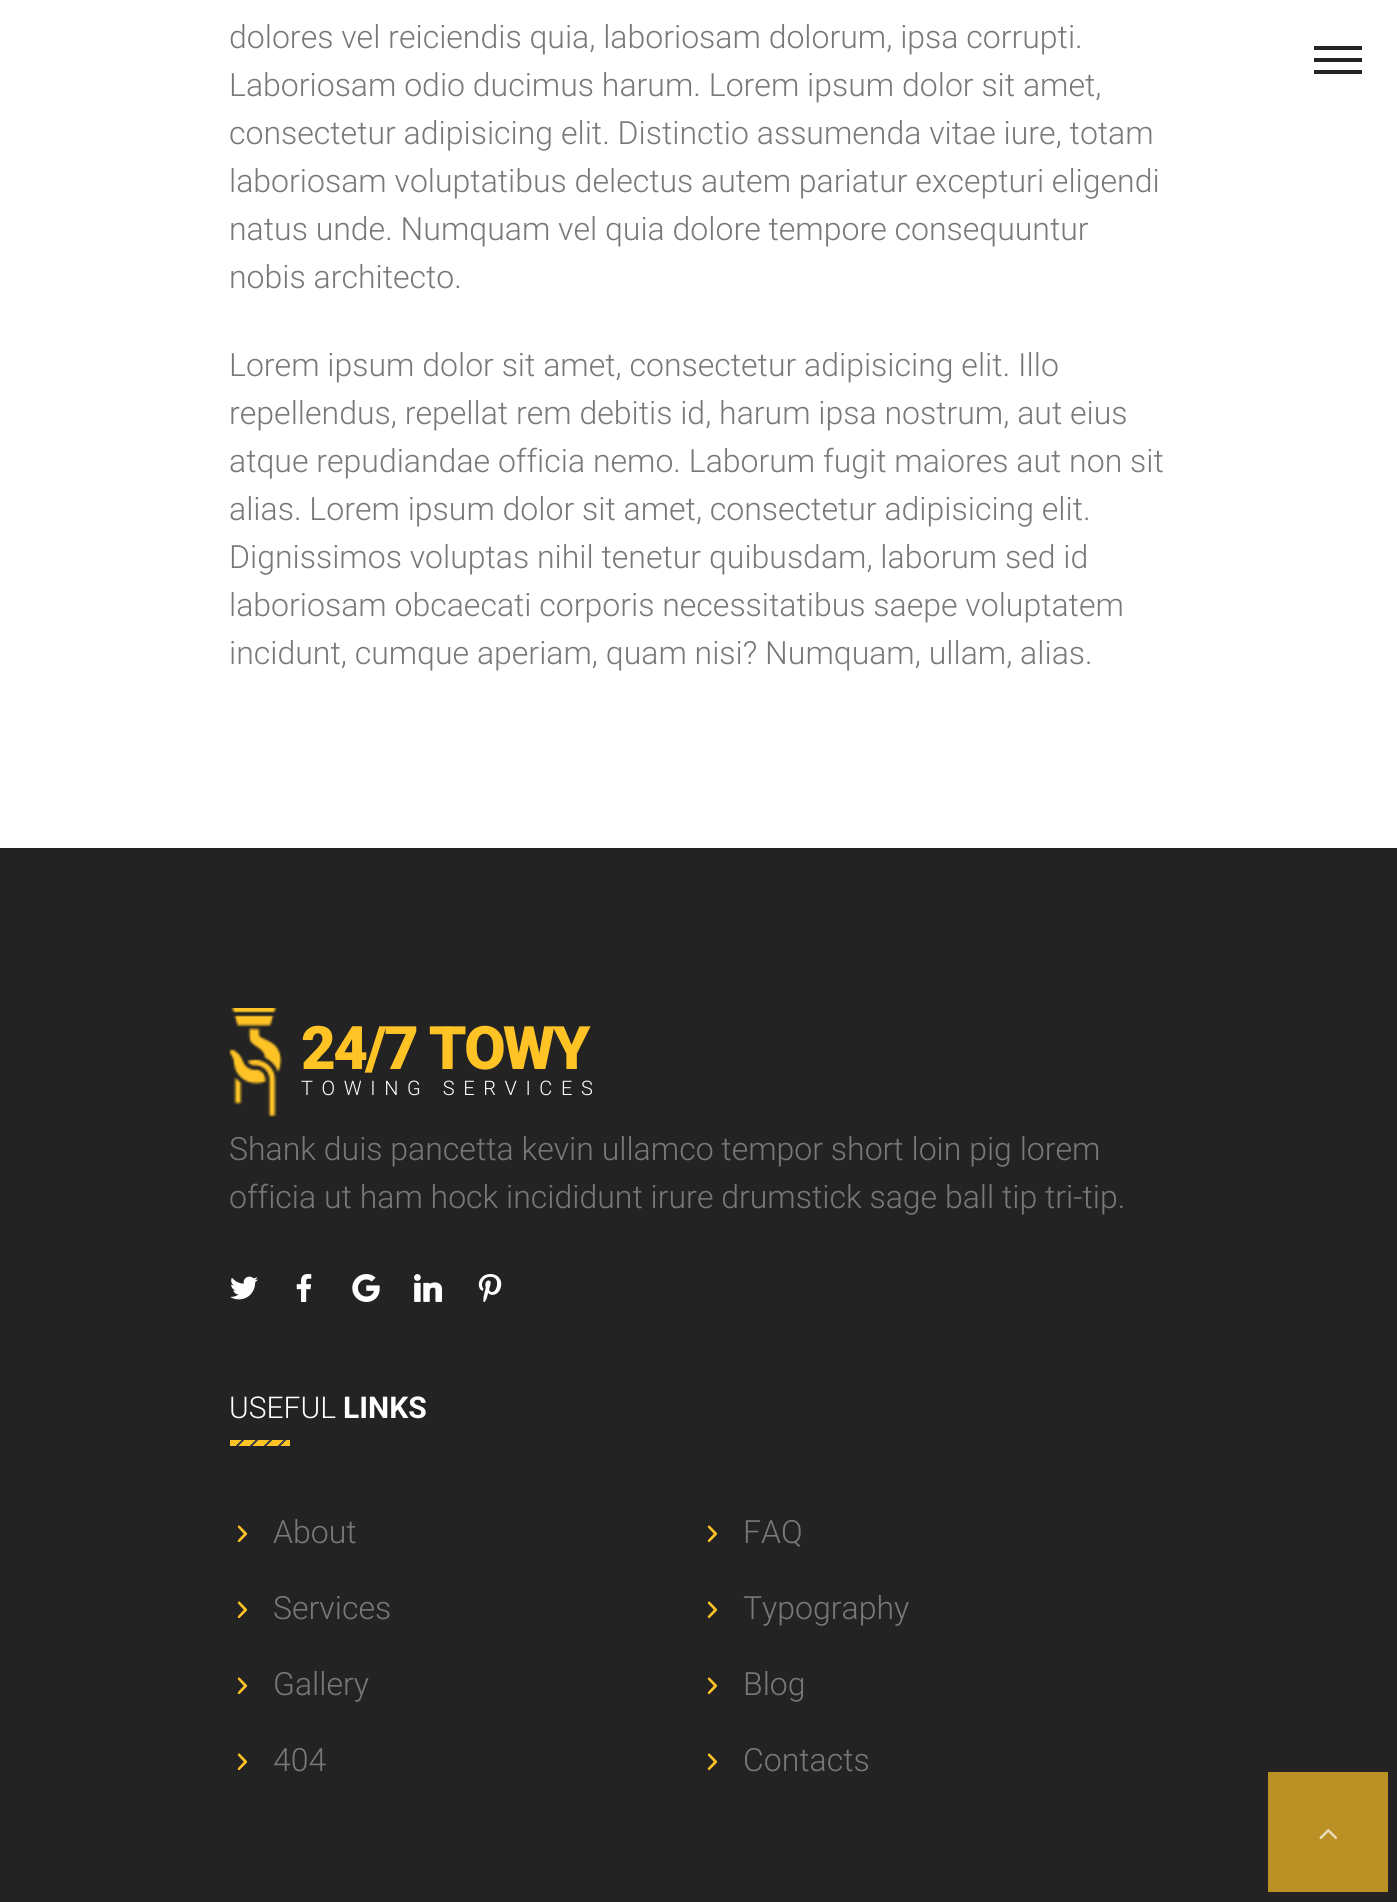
#include <cairo.h>
#include <math.h>
#include <stddef.h>

static cairo_t *c;
static void C(unsigned color){cairo_set_source_rgb(c, (color >> 16) / 255.0, (color >> 8 & 255) / 255.0, (color & 255) / 255.0);}
static void F(const char *family, double size, int italic, int bold){cairo_select_font_face(c, family, italic ? CAIRO_FONT_SLANT_ITALIC : CAIRO_FONT_SLANT_NORMAL,bold ? CAIRO_FONT_WEIGHT_BOLD : CAIRO_FONT_WEIGHT_NORMAL);cairo_set_font_size(c, size);}
static void T(double x, double y, const char *s){cairo_move_to(c, x, y);cairo_show_text(c, s);}
static void L(double x, double y, const char *s, double letter, double word){cairo_move_to(c, x, y);while (*s) {char ch[5] = {0};int n = 0;do ch[n++] = *s++; while ((*s & 0xC0) == 0x80);cairo_show_text(c, ch);cairo_rel_move_to(c, letter + word * (*ch == ' '), 0);}}
static void R(double x, double y, double w, double h){cairo_rectangle(c, x, y, w, h);cairo_fill(c);}
static void I(const char *path, double x, double y, double w, double h){cairo_surface_t *image = cairo_image_surface_create_from_png(path);cairo_save(c);cairo_set_source_surface(c, image, x, y);cairo_rectangle(c, x, y, w, h);cairo_fill(c);cairo_restore(c);cairo_surface_destroy(image);}
int main(void) {
cairo_surface_t *surface = cairo_image_surface_create(CAIRO_FORMAT_RGB24, 1397, 1902);
c = cairo_create(surface);
cairo_font_options_t *options = cairo_font_options_create();
cairo_font_options_set_hint_metrics(options, CAIRO_HINT_METRICS_OFF);
cairo_font_options_set_hint_style(options, CAIRO_HINT_STYLE_NONE);
cairo_set_font_options(c, options);
cairo_set_miter_limit(c, 4);
cairo_pattern_t *gradient;
C(0x232323);
cairo_paint(c);
C(0xffffff);
R(0,0,1397,848);
F("Roboto Light",32,0,0);
C(0x787878);
T(229,48,"dolores vel reiciendis quia, laboriosam dolorum, ipsa corrupti.");
T(229,96,"Laboriosam odio ducimus harum. Lorem ipsum dolor sit amet,");
T(229,144,"consectetur adipisicing elit. Distinctio assumenda vitae iure, totam");
T(229,192,"laboriosam voluptatibus delectus autem pariatur excepturi eligendi");
T(229,240,"natus unde. Numquam vel quia dolore tempore consequuntur");
T(229,288,"nobis architecto.");
T(229,376,"Lorem ipsum dolor sit amet, consectetur adipisicing elit. Illo");
T(229,424,"repellendus, repellat rem debitis id, harum ipsa nostrum, aut eius");
T(229,472,"atque repudiandae officia nemo. Laborum fugit maiores aut non sit");
T(229,520,"alias. Lorem ipsum dolor sit amet, consectetur adipisicing elit.");
T(229,568,"Dignissimos voluptas nihil tenetur quibusdam, laborum sed id");
T(229,616,"laboriosam obcaecati corporis necessitatibus saepe voluptatem");
T(229,664,"incidunt, cumque aperiam, quam nisi? Numquam, ullam, alias.");
C(0x232323);
R(1314,58,48,4);
R(1314,46,48,4);
R(1314,70,48,4);
I("1.png",229,1008,53,109);
F("Roboto Black",60,0,0);
C(0xffc326);
L(301,1069,"24/7 TOWY",-2.5,0);
F("Roboto Light",20,0,0);
C(0xffffff);
L(301,1095,"TOWING SERVICES",8.6,0);
F("Roboto Light",32,0,0);
C(0x787878);
T(229,1160,"Shank duis pancetta kevin ullamco tempor short loin pig lorem");
T(229,1208,"officia ut ham hock incididunt irure drumstick sage ball tip tri-tip.");
I("2.png",230,1276,28,24);
I("3.png",296,1274,16,28);
I("4.png",352,1274,28,28);
I("5.png",414,1274,28,28);
I("6.png",478,1274,24,28);
F("Roboto Light",30,0,0);
C(0xffffff);
T(229,1418,"USEFUL");
F("Roboto",30,0,1);
T(343,1418,"LINKS");
gradient = cairo_pattern_create_linear(244,1454,230,1440);
cairo_pattern_add_color_stop_rgba(gradient,.1,0.271,0.271,0.271,1);
cairo_pattern_add_color_stop_rgba(gradient,.1,1,0.765,0.149,1);
cairo_pattern_add_color_stop_rgba(gradient,.5,1,0.765,0.149,1);
cairo_pattern_add_color_stop_rgba(gradient,.5,0.271,0.271,0.271,1);
cairo_pattern_add_color_stop_rgba(gradient,.6,0.271,0.271,0.271,1);
cairo_pattern_add_color_stop_rgba(gradient,.6,1,0.765,0.149,1);
cairo_pattern_add_color_stop_rgba(gradient,1,1,0.765,0.149,1);
cairo_set_source(c,gradient);
cairo_pattern_destroy(gradient);
R(230,1440,14,6);
gradient = cairo_pattern_create_linear(258,1454,244,1440);
cairo_pattern_add_color_stop_rgba(gradient,.1,0.271,0.271,0.271,1);
cairo_pattern_add_color_stop_rgba(gradient,.1,1,0.765,0.149,1);
cairo_pattern_add_color_stop_rgba(gradient,.5,1,0.765,0.149,1);
cairo_pattern_add_color_stop_rgba(gradient,.5,0.271,0.271,0.271,1);
cairo_pattern_add_color_stop_rgba(gradient,.6,0.271,0.271,0.271,1);
cairo_pattern_add_color_stop_rgba(gradient,.6,1,0.765,0.149,1);
cairo_pattern_add_color_stop_rgba(gradient,1,1,0.765,0.149,1);
cairo_set_source(c,gradient);
cairo_pattern_destroy(gradient);
R(244,1440,14,6);
gradient = cairo_pattern_create_linear(272,1454,258,1440);
cairo_pattern_add_color_stop_rgba(gradient,.1,0.271,0.271,0.271,1);
cairo_pattern_add_color_stop_rgba(gradient,.1,1,0.765,0.149,1);
cairo_pattern_add_color_stop_rgba(gradient,.5,1,0.765,0.149,1);
cairo_pattern_add_color_stop_rgba(gradient,.5,0.271,0.271,0.271,1);
cairo_pattern_add_color_stop_rgba(gradient,.6,0.271,0.271,0.271,1);
cairo_pattern_add_color_stop_rgba(gradient,.6,1,0.765,0.149,1);
cairo_pattern_add_color_stop_rgba(gradient,1,1,0.765,0.149,1);
cairo_set_source(c,gradient);
cairo_pattern_destroy(gradient);
R(258,1440,14,6);
gradient = cairo_pattern_create_linear(286,1454,272,1440);
cairo_pattern_add_color_stop_rgba(gradient,.1,0.271,0.271,0.271,1);
cairo_pattern_add_color_stop_rgba(gradient,.1,1,0.765,0.149,1);
cairo_pattern_add_color_stop_rgba(gradient,.5,1,0.765,0.149,1);
cairo_pattern_add_color_stop_rgba(gradient,.5,0.271,0.271,0.271,1);
cairo_pattern_add_color_stop_rgba(gradient,.6,0.271,0.271,0.271,1);
cairo_pattern_add_color_stop_rgba(gradient,.6,1,0.765,0.149,1);
cairo_pattern_add_color_stop_rgba(gradient,1,1,0.765,0.149,1);
cairo_set_source(c,gradient);
cairo_pattern_destroy(gradient);
R(272,1440,14,6);
gradient = cairo_pattern_create_linear(300,1454,286,1440);
cairo_pattern_add_color_stop_rgba(gradient,.1,0.271,0.271,0.271,1);
cairo_pattern_add_color_stop_rgba(gradient,.1,1,0.765,0.149,1);
cairo_pattern_add_color_stop_rgba(gradient,.5,1,0.765,0.149,1);
cairo_pattern_add_color_stop_rgba(gradient,.5,0.271,0.271,0.271,1);
cairo_pattern_add_color_stop_rgba(gradient,.6,0.271,0.271,0.271,1);
cairo_pattern_add_color_stop_rgba(gradient,.6,1,0.765,0.149,1);
cairo_pattern_add_color_stop_rgba(gradient,1,1,0.765,0.149,1);
cairo_set_source(c,gradient);
cairo_pattern_destroy(gradient);
R(286,1440,4,6);
I("7.png",237,1525,11,17);
F("Roboto Light",32,0,0);
C(0x787878);
T(273,1543,"About");
I("7.png",237,1601,11,17);
T(273,1619,"Services");
I("7.png",237,1677,11,17);
T(273,1695,"Gallery");
I("7.png",237,1753,11,17);
T(273,1771,"404");
I("7.png",707,1525,11,17);
T(743,1543,"FAQ");
I("7.png",707,1601,11,17);
T(743,1619,"Typography");
I("7.png",707,1677,11,17);
T(743,1695,"Blog");
I("7.png",707,1753,11,17);
T(743,1771,"Contacts");
C(0xbb9125);
R(1268,1772,120,120);
I("8.png",1319,1828,19,12);
cairo_surface_write_to_png(surface, "o.png");
cairo_font_options_destroy(options);
cairo_destroy(c);
cairo_surface_destroy(surface);
return 0;
}
